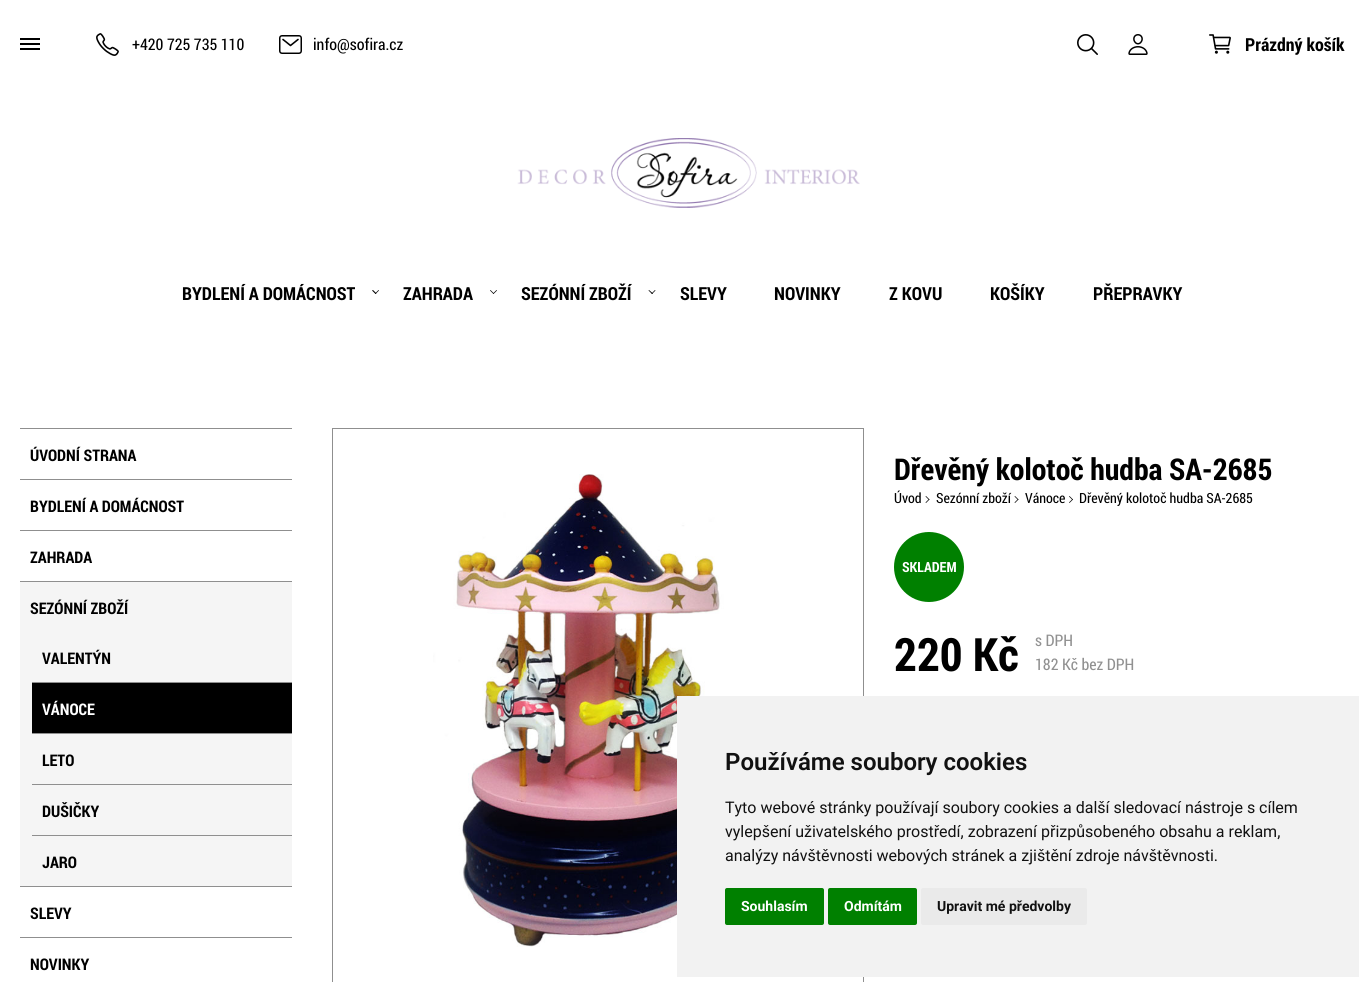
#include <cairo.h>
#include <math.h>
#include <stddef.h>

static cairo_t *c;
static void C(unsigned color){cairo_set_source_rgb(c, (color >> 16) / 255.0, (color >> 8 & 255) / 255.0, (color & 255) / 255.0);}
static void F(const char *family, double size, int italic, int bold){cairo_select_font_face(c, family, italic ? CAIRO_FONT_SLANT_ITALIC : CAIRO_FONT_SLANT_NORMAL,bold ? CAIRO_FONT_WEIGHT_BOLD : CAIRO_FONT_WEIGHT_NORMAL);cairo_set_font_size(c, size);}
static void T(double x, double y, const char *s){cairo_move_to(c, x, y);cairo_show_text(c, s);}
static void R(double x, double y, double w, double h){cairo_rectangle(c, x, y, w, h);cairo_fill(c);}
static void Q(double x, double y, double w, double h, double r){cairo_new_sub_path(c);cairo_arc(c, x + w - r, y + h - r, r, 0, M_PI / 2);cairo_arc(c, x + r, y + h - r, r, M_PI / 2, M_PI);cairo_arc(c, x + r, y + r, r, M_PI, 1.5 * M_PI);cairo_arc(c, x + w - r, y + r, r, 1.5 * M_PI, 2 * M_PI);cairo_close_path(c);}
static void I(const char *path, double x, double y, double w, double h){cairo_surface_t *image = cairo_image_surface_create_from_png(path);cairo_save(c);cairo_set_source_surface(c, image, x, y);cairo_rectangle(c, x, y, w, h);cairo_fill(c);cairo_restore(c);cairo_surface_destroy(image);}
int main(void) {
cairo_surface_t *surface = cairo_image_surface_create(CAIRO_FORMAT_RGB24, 1364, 982);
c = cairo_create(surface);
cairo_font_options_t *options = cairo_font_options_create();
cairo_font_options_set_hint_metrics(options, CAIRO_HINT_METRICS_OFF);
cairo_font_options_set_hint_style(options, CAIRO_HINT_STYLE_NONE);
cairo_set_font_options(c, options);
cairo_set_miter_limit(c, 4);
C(0xffffff);
cairo_paint(c);
C(0x000000);
R(20,48,20,2);
R(20,43,20,2);
R(20,38,20,2);
I("1.png",96,33,23,23);
F("Roboto Condensed",16,0,0);
T(132,50,"+420 725 735 110");
Q(279.75,35.75,21.5,17.5,2.25);
cairo_set_line_width(c,1.5);
cairo_stroke(c);
cairo_new_path(c);
cairo_move_to(c,283,39.5);
cairo_line_to(c,290.5,45.5);
cairo_line_to(c,298,39.5);
cairo_set_line_width(c,1.6);
cairo_set_line_cap(c,CAIRO_LINE_CAP_ROUND);
cairo_set_line_join(c,CAIRO_LINE_JOIN_ROUND);
cairo_stroke(c);
T(313,50,"info@sofira.cz");
I("2.png",1077,34,21,21);
I("3.png",1128,34,20,21);
I("4.png",1209,34,22,20);
F("Roboto Condensed",18,0,1);
T(1245,51,"Prázdný košík");
I("5.png",517,138,343,70);
T(182,300,"BYDLENÍ A DOMÁCNOST");
cairo_new_path(c);
cairo_move_to(c,378.5,290);
cairo_line_to(c,379,290.5);
cairo_line_to(c,375.5,294);
cairo_line_to(c,375,293.5);
cairo_close_path(c);
cairo_fill(c);
cairo_new_path(c);
cairo_move_to(c,373,290);
cairo_line_to(c,376.5,293.5);
cairo_line_to(c,375.5,294);
cairo_line_to(c,372,290.5);
cairo_close_path(c);
cairo_fill(c);
T(403,300,"ZAHRADA");
cairo_new_path(c);
cairo_move_to(c,496.5,290);
cairo_line_to(c,497,290.5);
cairo_line_to(c,493.5,294);
cairo_line_to(c,493,293.5);
cairo_close_path(c);
cairo_fill(c);
cairo_new_path(c);
cairo_move_to(c,490.5,290);
cairo_line_to(c,494,293.5);
cairo_line_to(c,493.5,294);
cairo_line_to(c,490,290.5);
cairo_close_path(c);
cairo_fill(c);
T(521,300,"SEZÓNNÍ ZBOŽÍ");
cairo_new_path(c);
cairo_move_to(c,655,290);
cairo_line_to(c,655.5,290.5);
cairo_line_to(c,652,294);
cairo_line_to(c,651.5,293.5);
cairo_close_path(c);
cairo_fill(c);
cairo_new_path(c);
cairo_move_to(c,649,290);
cairo_line_to(c,653,293.5);
cairo_line_to(c,652,294);
cairo_line_to(c,648.5,290.5);
cairo_close_path(c);
cairo_fill(c);
T(680,300,"SLEVY");
T(774,300,"NOVINKY");
T(889,300,"Z KOVU");
T(990,300,"KOŠÍKY");
T(1093,300,"PŘEPRAVKY");
C(0x8f8f8f);
R(20,428,272,1);
R(20,479,272,1);
F("Roboto Condensed",16,0,1);
C(0x000000);
T(30,461,"ÚVODNÍ STRANA");
C(0x8f8f8f);
R(20,530,272,1);
C(0x000000);
T(30,512,"BYDLENÍ A DOMÁCNOST");
C(0x8f8f8f);
R(20,581,272,1);
C(0x000000);
T(30,563,"ZAHRADA");
C(0xf5f5f5);
R(20,582,272,304);
C(0x8f8f8f);
R(20,886,272,1);
C(0x000000);
T(30,614,"SEZÓNNÍ ZBOŽÍ");
C(0x8f8f8f);
R(32,682,260,1);
C(0x000000);
T(42,664,"VALENTÝN");
C(0x8f8f8f);
R(32,733,260,1);
C(0x000000);
R(32,683,260,50);
C(0xffffff);
T(42,715,"VÁNOCE");
C(0x8f8f8f);
R(32,784,260,1);
C(0x000000);
T(42,766,"LETO");
C(0x8f8f8f);
R(32,835,260,1);
C(0x000000);
T(42,817,"DUŠIČKY");
T(42,868,"JARO");
C(0x8f8f8f);
R(20,937,272,1);
C(0x000000);
T(30,919,"SLEVY");
T(30,970,"NOVINKY");
cairo_rectangle(c,332.5,428.5,531,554);
C(0x8f8f8f);
cairo_set_line_width(c,1);
cairo_set_line_cap(c,CAIRO_LINE_CAP_BUTT);
cairo_set_line_join(c,CAIRO_LINE_JOIN_MITER);
cairo_stroke(c);
I("6.png",433,474,297,473);
F("Roboto Condensed",30,0,1);
C(0x000000);
T(894,480,"Dřevěný kolotoč hudba SA-2685");
F("Roboto Condensed",14,0,0);
T(894,503,"Úvod");
cairo_new_path(c);
cairo_move_to(c,925.5,496.5);
cairo_line_to(c,926,496);
cairo_line_to(c,929.5,499.5);
cairo_line_to(c,929,500);
cairo_close_path(c);
cairo_fill(c);
cairo_new_path(c);
cairo_move_to(c,925.5,502.5);
cairo_line_to(c,929,499);
cairo_line_to(c,929.5,499.5);
cairo_line_to(c,926,503);
cairo_close_path(c);
cairo_fill(c);
T(936,503,"Sezónní zboží");
cairo_new_path(c);
cairo_move_to(c,1014.5,496.5);
cairo_line_to(c,1015,496);
cairo_line_to(c,1018.5,499.5);
cairo_line_to(c,1018,500);
cairo_close_path(c);
cairo_fill(c);
cairo_new_path(c);
cairo_move_to(c,1014.5,502.5);
cairo_line_to(c,1018,499);
cairo_line_to(c,1018.5,499.5);
cairo_line_to(c,1015,503);
cairo_close_path(c);
cairo_fill(c);
T(1025,503,"Vánoce");
cairo_new_path(c);
cairo_move_to(c,1069,496.5);
cairo_line_to(c,1069.5,496);
cairo_line_to(c,1073,499.5);
cairo_line_to(c,1072.5,500);
cairo_close_path(c);
cairo_fill(c);
cairo_new_path(c);
cairo_move_to(c,1069,502.5);
cairo_line_to(c,1072.5,499);
cairo_line_to(c,1073,499.5);
cairo_line_to(c,1069.5,503);
cairo_close_path(c);
cairo_fill(c);
T(1079,503,"Dřevěný kolotoč hudba SA-2685");
C(0x008000);
cairo_new_path(c);
cairo_arc(c,929,567,35,0,2 * M_PI);
cairo_fill(c);
F("Roboto Condensed",14,0,1);
C(0xffffff);
T(902,572,"SKLADEM");
F("Roboto Condensed",46,0,1);
C(0x000000);
T(894,671,"220 Kč");
F("Roboto Condensed",16,0,0);
C(0x919191);
T(1035,646,"s DPH");
T(1035,670,"182 Kč bez DPH");
C(0xf2f2f2);
R(677,696,682,281);
F("Roboto SemiBold",24,0,0);
C(0x111111);
T(725,770,"Používáme soubory cookies");
F("Roboto",16,0,0);
T(725,813,"Tyto webové stránky používají soubory cookies a další sledovací nástroje s cílem");
T(725,837,"vylepšení uživatelského prostředí, zobrazení přizpůsobeného obsahu a reklam,");
T(725,861,"analýzy návštěvnosti webových stránek a zjištění zdroje návštěvnosti.");
C(0x008000);
Q(725,888,99,37,2);
cairo_fill(c);
F("Roboto",14,0,1);
C(0xffffff);
T(741,911,"Souhlasím");
C(0x008000);
Q(828,888,89,37,2);
cairo_fill(c);
C(0xffffff);
T(844,911,"Odmítám");
C(0xeaeaea);
Q(921,888,166,37,2);
cairo_fill(c);
C(0x111111);
T(937,911,"Upravit mé předvolby");
cairo_surface_write_to_png(surface, "o.png");
cairo_font_options_destroy(options);
cairo_destroy(c);
cairo_surface_destroy(surface);
return 0;
}
